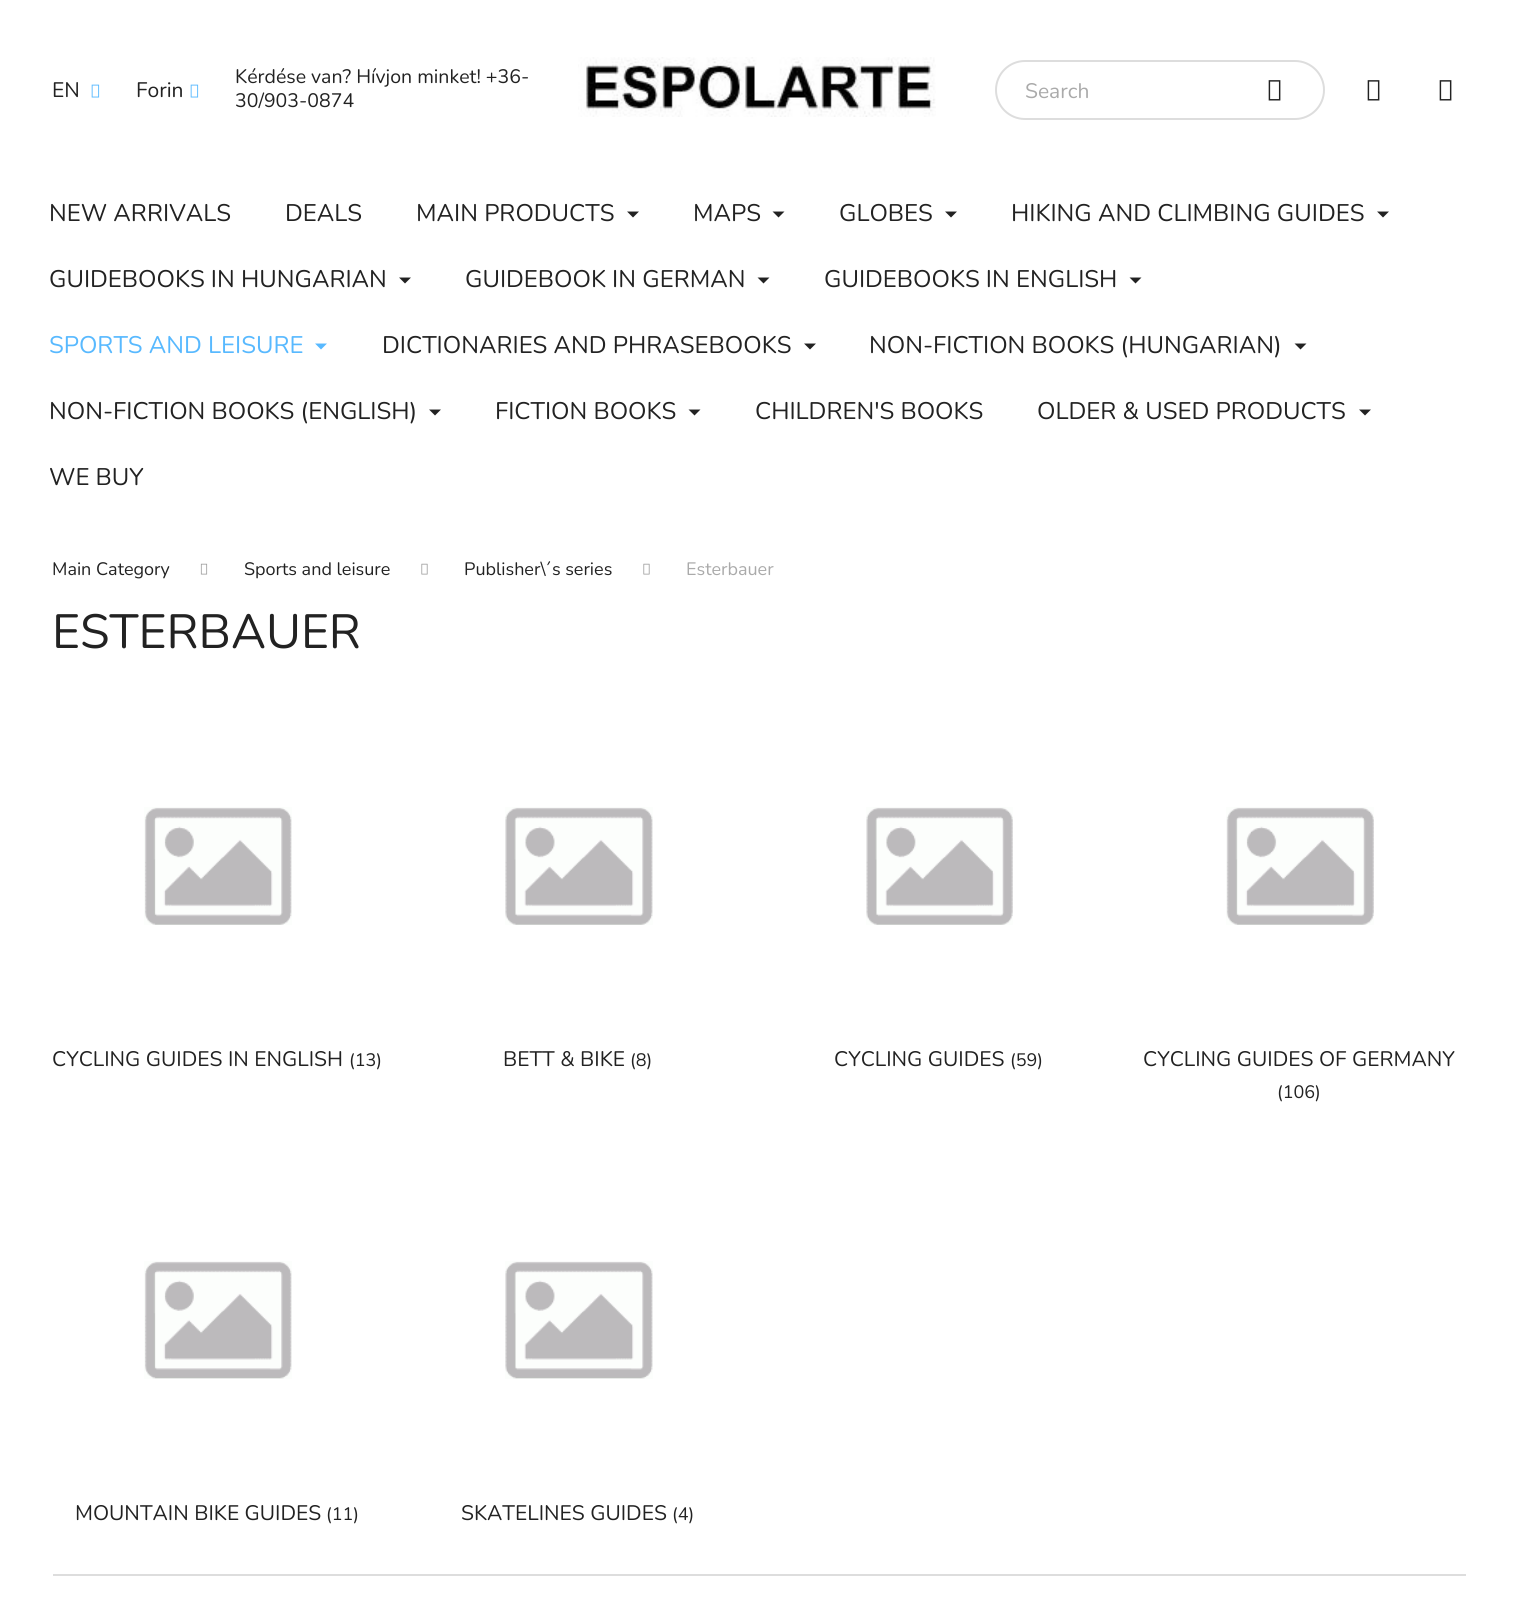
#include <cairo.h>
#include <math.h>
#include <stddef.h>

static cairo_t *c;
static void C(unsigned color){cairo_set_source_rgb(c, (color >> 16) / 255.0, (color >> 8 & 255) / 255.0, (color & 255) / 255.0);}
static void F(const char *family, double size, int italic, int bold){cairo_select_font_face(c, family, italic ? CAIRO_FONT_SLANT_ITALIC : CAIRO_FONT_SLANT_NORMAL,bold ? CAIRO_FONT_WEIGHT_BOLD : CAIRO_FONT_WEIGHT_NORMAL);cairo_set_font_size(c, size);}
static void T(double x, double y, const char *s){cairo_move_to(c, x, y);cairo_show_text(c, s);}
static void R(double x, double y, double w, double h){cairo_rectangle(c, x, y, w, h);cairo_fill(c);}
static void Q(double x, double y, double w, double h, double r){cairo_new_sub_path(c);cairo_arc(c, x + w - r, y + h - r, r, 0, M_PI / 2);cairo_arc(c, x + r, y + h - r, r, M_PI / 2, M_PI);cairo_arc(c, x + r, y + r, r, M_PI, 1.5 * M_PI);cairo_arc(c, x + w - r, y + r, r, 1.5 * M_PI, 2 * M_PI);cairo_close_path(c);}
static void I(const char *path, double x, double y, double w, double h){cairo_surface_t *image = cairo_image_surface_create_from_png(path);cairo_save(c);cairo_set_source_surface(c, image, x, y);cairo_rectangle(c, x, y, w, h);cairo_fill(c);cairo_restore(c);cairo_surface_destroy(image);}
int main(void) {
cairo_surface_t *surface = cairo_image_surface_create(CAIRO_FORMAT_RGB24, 1516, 1622);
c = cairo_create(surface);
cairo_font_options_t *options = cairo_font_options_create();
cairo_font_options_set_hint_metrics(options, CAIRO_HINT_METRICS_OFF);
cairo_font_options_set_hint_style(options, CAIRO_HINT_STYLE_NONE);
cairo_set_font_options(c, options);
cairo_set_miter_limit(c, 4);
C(0xffffff);
cairo_paint(c);
F("Nunito",21,0,0);
C(0x222222);
T(52,97,"EN");
I("1.png",91,84,9,14);
T(136,97,"Forin");
I("1.png",190,84,9,14);
F("Nunito",19.5,0,0);
T(235,83,"Kérdése van? Hívjon minket! +36-");
T(235,107,"30/903-0874");
I("2.png",578,57,358,60);
Q(996,61,328,58,29);
C(0xdddddd);
cairo_stroke(c);
F("Nunito",21,0,0);
C(0xaaaaaa);
T(1025,98,"Search");
I("3.png",1268,80,13,21);
I("3.png",1367,80,13,21);
I("3.png",1439,80,13,21);
F("Nunito",24,0,0);
C(0x222222);
T(49,221,"NEW ARRIVALS");
T(285,221,"DEALS");
T(416,221,"MAIN PRODUCTS");
cairo_new_path(c);
cairo_move_to(c,627,211.5);
cairo_line_to(c,639,211.5);
cairo_line_to(c,633,217.5);
cairo_close_path(c);
cairo_fill(c);
T(693,221,"MAPS");
cairo_new_path(c);
cairo_move_to(c,772.5,211.5);
cairo_line_to(c,784.5,211.5);
cairo_line_to(c,778.5,217.5);
cairo_close_path(c);
cairo_fill(c);
T(839,221,"GLOBES");
cairo_new_path(c);
cairo_move_to(c,945,211.5);
cairo_line_to(c,957,211.5);
cairo_line_to(c,951,217.5);
cairo_close_path(c);
cairo_fill(c);
T(1011,221,"HIKING AND CLIMBING GUIDES");
cairo_new_path(c);
cairo_move_to(c,1377,211.5);
cairo_line_to(c,1389,211.5);
cairo_line_to(c,1383,217.5);
cairo_close_path(c);
cairo_fill(c);
T(49,287,"GUIDEBOOKS IN HUNGARIAN");
cairo_new_path(c);
cairo_move_to(c,399,277.5);
cairo_line_to(c,411,277.5);
cairo_line_to(c,405,283.5);
cairo_close_path(c);
cairo_fill(c);
T(465,287,"GUIDEBOOK IN GERMAN");
cairo_new_path(c);
cairo_move_to(c,757.5,277.5);
cairo_line_to(c,769.5,277.5);
cairo_line_to(c,763.5,283.5);
cairo_close_path(c);
cairo_fill(c);
T(824,287,"GUIDEBOOKS IN ENGLISH");
cairo_new_path(c);
cairo_move_to(c,1129.5,277.5);
cairo_line_to(c,1141.5,277.5);
cairo_line_to(c,1135.5,283.5);
cairo_close_path(c);
cairo_fill(c);
C(0x58b9ff);
T(49,353,"SPORTS AND LEISURE");
cairo_new_path(c);
cairo_move_to(c,315,343.5);
cairo_line_to(c,327,343.5);
cairo_line_to(c,321,349.5);
cairo_close_path(c);
cairo_fill(c);
C(0x222222);
T(382,353,"DICTIONARIES AND PHRASEBOOKS");
cairo_new_path(c);
cairo_move_to(c,804,343.5);
cairo_line_to(c,816,343.5);
cairo_line_to(c,810,349.5);
cairo_close_path(c);
cairo_fill(c);
T(869,353,"NON-FICTION BOOKS (HUNGARIAN)");
cairo_new_path(c);
cairo_move_to(c,1294.5,343.5);
cairo_line_to(c,1306.5,343.5);
cairo_line_to(c,1300.5,349.5);
cairo_close_path(c);
cairo_fill(c);
T(49,419,"NON-FICTION BOOKS (ENGLISH)");
cairo_new_path(c);
cairo_move_to(c,429,409.5);
cairo_line_to(c,441,409.5);
cairo_line_to(c,435,415.5);
cairo_close_path(c);
cairo_fill(c);
T(495,419,"FICTION BOOKS");
cairo_new_path(c);
cairo_move_to(c,688.5,409.5);
cairo_line_to(c,700.5,409.5);
cairo_line_to(c,694.5,415.5);
cairo_close_path(c);
cairo_fill(c);
T(755,419,"CHILDREN'S BOOKS");
T(1037,419,"OLDER & USED PRODUCTS");
cairo_new_path(c);
cairo_move_to(c,1359,409.5);
cairo_line_to(c,1371,409.5);
cairo_line_to(c,1365,415.5);
cairo_close_path(c);
cairo_fill(c);
T(49,485,"WE BUY");
F("Nunito",18,0,0);
T(52,575,"Main Category");
I("4.png",200,563,8,12);
T(244,575,"Sports and leisure");
I("5.png",421,563,7,12);
T(464,575,"Publisher\\´s series");
I("5.png",643,563,7,12);
C(0xaaaaaa);
T(686,575,"Esterbauer");
F("Nunito",48,0,0);
C(0x222222);
T(52,648,"ESTERBAUER");
I("6.png",144,807,148,118);
F("Nunito",21,0,0);
T(52,1066,"CYCLING GUIDES IN ENGLISH");
F("Nunito",18,0,0);
T(349,1066,"(13)");
I("7.png",505,807,148,118);
F("Nunito",21,0,0);
T(503,1066,"BETT & BIKE");
F("Nunito",18,0,0);
T(630,1066,"(8)");
I("8.png",866,807,147,118);
F("Nunito",21,0,0);
T(834,1066,"CYCLING GUIDES");
F("Nunito",18,0,0);
T(1010,1066,"(59)");
I("9.png",1226,807,148,118);
F("Nunito",21,0,0);
T(1143,1066,"CYCLING GUIDES OF GERMANY");
F("Nunito",18,0,0);
T(1277,1098,"(106)");
I("10.png",144,1261,148,118);
F("Nunito",21,0,0);
T(75,1520,"MOUNTAIN BIKE GUIDES");
F("Nunito",18,0,0);
T(326,1520,"(11)");
I("11.png",505,1261,148,118);
F("Nunito",21,0,0);
T(461,1520,"SKATELINES GUIDES");
F("Nunito",18,0,0);
T(672,1520,"(4)");
C(0xdddddd);
R(53,1574,1413,2);
cairo_surface_write_to_png(surface, "o.png");
cairo_font_options_destroy(options);
cairo_destroy(c);
cairo_surface_destroy(surface);
return 0;
}
